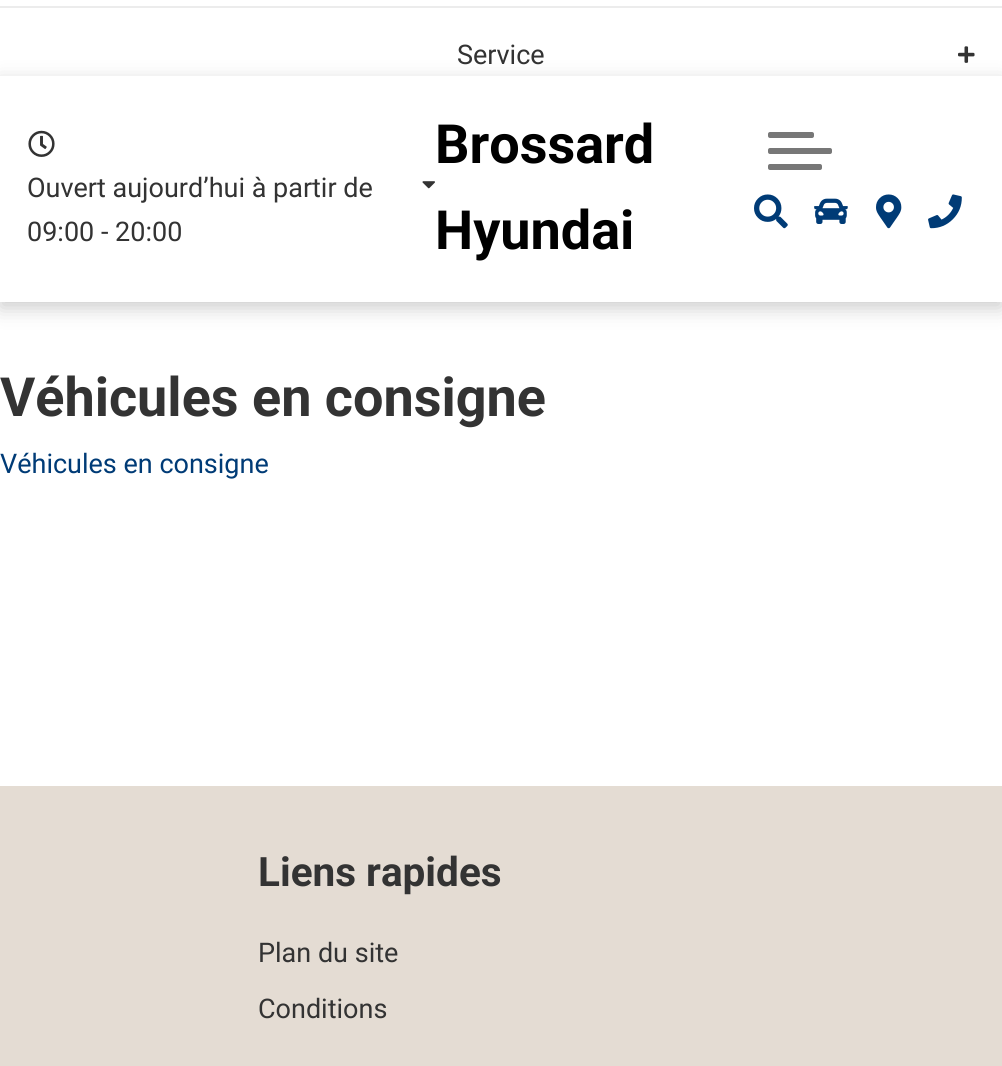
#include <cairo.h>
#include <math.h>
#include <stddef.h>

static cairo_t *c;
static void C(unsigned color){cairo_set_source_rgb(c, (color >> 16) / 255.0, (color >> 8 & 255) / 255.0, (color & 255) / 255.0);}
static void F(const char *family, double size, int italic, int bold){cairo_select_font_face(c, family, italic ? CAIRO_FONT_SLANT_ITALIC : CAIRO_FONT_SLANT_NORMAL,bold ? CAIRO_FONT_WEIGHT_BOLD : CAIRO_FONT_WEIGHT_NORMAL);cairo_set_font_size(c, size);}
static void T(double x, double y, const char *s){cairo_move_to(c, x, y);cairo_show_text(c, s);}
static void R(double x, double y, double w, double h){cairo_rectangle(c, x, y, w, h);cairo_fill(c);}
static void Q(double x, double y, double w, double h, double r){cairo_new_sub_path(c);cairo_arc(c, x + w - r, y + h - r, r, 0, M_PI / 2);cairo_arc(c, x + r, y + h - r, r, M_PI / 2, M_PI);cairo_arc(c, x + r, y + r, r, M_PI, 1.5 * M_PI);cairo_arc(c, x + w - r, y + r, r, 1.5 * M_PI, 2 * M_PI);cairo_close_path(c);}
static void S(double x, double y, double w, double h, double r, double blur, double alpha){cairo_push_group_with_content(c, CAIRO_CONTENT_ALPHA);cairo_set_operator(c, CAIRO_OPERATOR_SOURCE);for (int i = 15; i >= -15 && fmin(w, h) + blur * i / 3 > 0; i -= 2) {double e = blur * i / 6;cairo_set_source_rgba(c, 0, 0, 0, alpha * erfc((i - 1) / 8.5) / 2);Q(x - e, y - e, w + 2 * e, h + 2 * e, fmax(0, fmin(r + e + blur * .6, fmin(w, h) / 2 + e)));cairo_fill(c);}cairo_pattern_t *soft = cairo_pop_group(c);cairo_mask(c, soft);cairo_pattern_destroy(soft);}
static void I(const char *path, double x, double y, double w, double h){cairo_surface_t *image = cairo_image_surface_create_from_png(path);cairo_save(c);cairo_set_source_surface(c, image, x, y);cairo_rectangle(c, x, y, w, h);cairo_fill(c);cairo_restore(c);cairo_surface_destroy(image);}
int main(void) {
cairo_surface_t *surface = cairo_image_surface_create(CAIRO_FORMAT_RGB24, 1002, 1066);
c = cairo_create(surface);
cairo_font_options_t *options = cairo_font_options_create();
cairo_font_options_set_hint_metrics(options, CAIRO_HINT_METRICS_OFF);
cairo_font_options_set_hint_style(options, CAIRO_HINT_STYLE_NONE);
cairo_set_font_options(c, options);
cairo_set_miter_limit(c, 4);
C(0xffffff);
cairo_paint(c);
C(0xececec);
R(0,6,1002,2);
F("Roboto",27,0,0);
C(0x333333);
T(457,64,"Service");
I("1.png",958,46,17,17);
C(0x000000);
S(0,82,1002,226,0,10,.2);
C(0xffffff);
R(0,76,1002,226);
I("2.png",28,130,27,27);
C(0x333333);
T(27,197,"Ouvert aujourd’hui à partir de");
I("3.png",422,181,13,8);
T(27,241,"09:00 - 20:00");
F("Roboto",54,0,1);
C(0x000000);
T(435,163,"Brossard");
T(435,249,"Hyundai");
C(0x777777);
Q(768,148,64,6,2);
cairo_fill(c);
Q(768,132,46,6,2);
cairo_fill(c);
Q(768,164,54,6,2);
cairo_fill(c);
I("4.png",754,194,34,35);
I("5.png",814,198,34,26);
I("6.png",876,194,26,35);
I("7.png",928,194,34,35);
C(0x333333);
T(0,416,"Véhicules en consigne");
F("Roboto",27,0,0);
C(0x003b76);
T(0,473,"Véhicules en consigne");
C(0xe4dcd3);
R(0,786,1002,280);
F("Roboto",40.5,0,1);
C(0x333333);
T(258,886,"Liens rapides");
F("Roboto",27,0,0);
T(258,962,"Plan du site");
T(258,1018,"Conditions");
cairo_surface_write_to_png(surface, "o.png");
cairo_font_options_destroy(options);
cairo_destroy(c);
cairo_surface_destroy(surface);
return 0;
}
